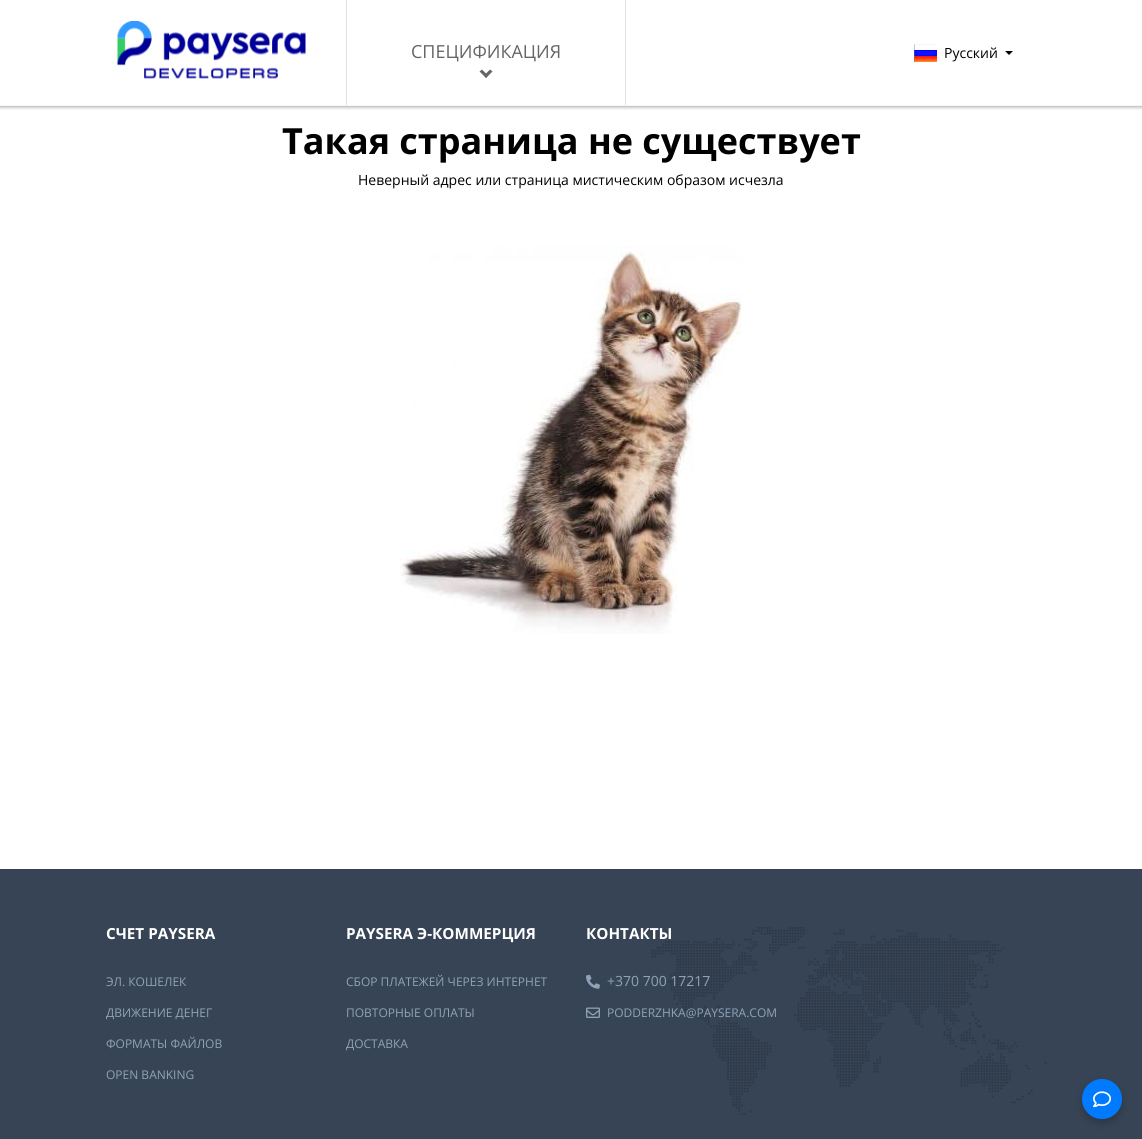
#include <cairo.h>
#include <math.h>
#include <stddef.h>

static cairo_t *c;
static void C(unsigned color){cairo_set_source_rgb(c, (color >> 16) / 255.0, (color >> 8 & 255) / 255.0, (color & 255) / 255.0);}
static void F(const char *family, double size, int italic, int bold){cairo_select_font_face(c, family, italic ? CAIRO_FONT_SLANT_ITALIC : CAIRO_FONT_SLANT_NORMAL,bold ? CAIRO_FONT_WEIGHT_BOLD : CAIRO_FONT_WEIGHT_NORMAL);cairo_set_font_size(c, size);}
static void T(double x, double y, const char *s){cairo_move_to(c, x, y);cairo_show_text(c, s);}
static void R(double x, double y, double w, double h){cairo_rectangle(c, x, y, w, h);cairo_fill(c);}
static void Q(double x, double y, double w, double h, double r){cairo_new_sub_path(c);cairo_arc(c, x + w - r, y + h - r, r, 0, M_PI / 2);cairo_arc(c, x + r, y + h - r, r, M_PI / 2, M_PI);cairo_arc(c, x + r, y + r, r, M_PI, 1.5 * M_PI);cairo_arc(c, x + w - r, y + r, r, 1.5 * M_PI, 2 * M_PI);cairo_close_path(c);}
static void S(double x, double y, double w, double h, double r, double blur, double alpha){cairo_push_group_with_content(c, CAIRO_CONTENT_ALPHA);cairo_set_operator(c, CAIRO_OPERATOR_SOURCE);for (int i = 15; i >= -15 && fmin(w, h) + blur * i / 3 > 0; i -= 2) {double e = blur * i / 6;cairo_set_source_rgba(c, 0, 0, 0, alpha * erfc((i - 1) / 8.5) / 2);Q(x - e, y - e, w + 2 * e, h + 2 * e, fmax(0, fmin(r + e + blur * .6, fmin(w, h) / 2 + e)));cairo_fill(c);}cairo_pattern_t *soft = cairo_pop_group(c);cairo_mask(c, soft);cairo_pattern_destroy(soft);}
static void I(const char *path, double x, double y, double w, double h){cairo_surface_t *image = cairo_image_surface_create_from_png(path);cairo_save(c);cairo_set_source_surface(c, image, x, y);cairo_rectangle(c, x, y, w, h);cairo_fill(c);cairo_restore(c);cairo_surface_destroy(image);}
int main(void) {
cairo_surface_t *surface = cairo_image_surface_create(CAIRO_FORMAT_RGB24, 1142, 1139);
c = cairo_create(surface);
cairo_font_options_t *options = cairo_font_options_create();
cairo_font_options_set_hint_metrics(options, CAIRO_HINT_METRICS_OFF);
cairo_font_options_set_hint_style(options, CAIRO_HINT_STYLE_NONE);
cairo_set_font_options(c, options);
cairo_set_miter_limit(c, 4);
C(0xffffff);
cairo_paint(c);
I("1.png",117,21,189,58);
C(0xe2e2e2);
R(625,0,1,105);
R(346,0,1,105);
F("Open Sans",18,0,0);
C(0x666565);
T(411,58,"СПЕЦИФИКАЦИЯ");
cairo_new_path(c);
cairo_move_to(c,490,69.5);
cairo_line_to(c,492.5,71.5);
cairo_line_to(c,486,78);
cairo_line_to(c,484,75.5);
cairo_close_path(c);
cairo_fill(c);
cairo_new_path(c);
cairo_move_to(c,482,69.5);
cairo_line_to(c,488,75.5);
cairo_line_to(c,486,78);
cairo_line_to(c,479.5,71.5);
cairo_close_path(c);
cairo_fill(c);
I("2.png",914,44,23,18);
F("Open Sans",14,0,0);
C(0x000000);
T(944,58,"Русский");
cairo_new_path(c);
cairo_move_to(c,1005,51);
cairo_line_to(c,1013,51);
cairo_line_to(c,1009,55);
cairo_close_path(c);
cairo_fill(c);
I("3.png",0,105,1142,5);
F("Open Sans",36,0,1);
T(282,154,"Такая страница не существует");
F("Open Sans",14,0,0);
T(358,185,"Неверный адрес или страница мистическим образом исчезла");
I("4.png",400,246,342,388);
C(0x374455);
R(0,869,1142,270);
I("5.png",651,927,396,188);
F("Open Sans",15.25,0,1);
C(0xffffff);
T(106,939,"СЧЕТ PAYSERA");
F("Open Sans",12,0,0);
C(0x90a2b8);
T(106,986,"ЭЛ. КОШЕЛЕК");
T(106,1017,"ДВИЖЕНИЕ ДЕНЕГ");
T(106,1048,"ФОРМАТЫ ФАЙЛОВ");
T(106,1079,"OPEN BANKING");
F("Open Sans",15.25,0,1);
C(0xffffff);
T(346,939,"PAYSERA Э-КОММЕРЦИЯ");
F("Open Sans",12,0,0);
C(0x90a2b8);
T(346,986,"СБОР ПЛАТЕЖЕЙ ЧЕРЕЗ ИНТЕРНЕТ");
T(346,1017,"ПОВТОРНЫЕ ОПЛАТЫ");
T(346,1048,"ДОСТАВКА");
F("Open Sans",15.25,0,1);
C(0xffffff);
T(586,939,"КОНТАКТЫ");
I("6.png",586,974,14,15);
F("Open Sans",14,0,0);
C(0x90a2b8);
T(607,986,"+370 700 17217");
I("7.png",586,1007,14,11);
F("Open Sans",12,0,0);
T(607,1017,"PODDERZHKA@PAYSERA.COM");
C(0x000000);
S(1082,1083,40,40,20,4,.2);
C(0x007bff);
cairo_arc(c,1102,1099,20,0,2 * M_PI);
cairo_fill(c);
I("8.png",1093,1091,18,17);
cairo_surface_write_to_png(surface, "o.png");
cairo_font_options_destroy(options);
cairo_destroy(c);
cairo_surface_destroy(surface);
return 0;
}
